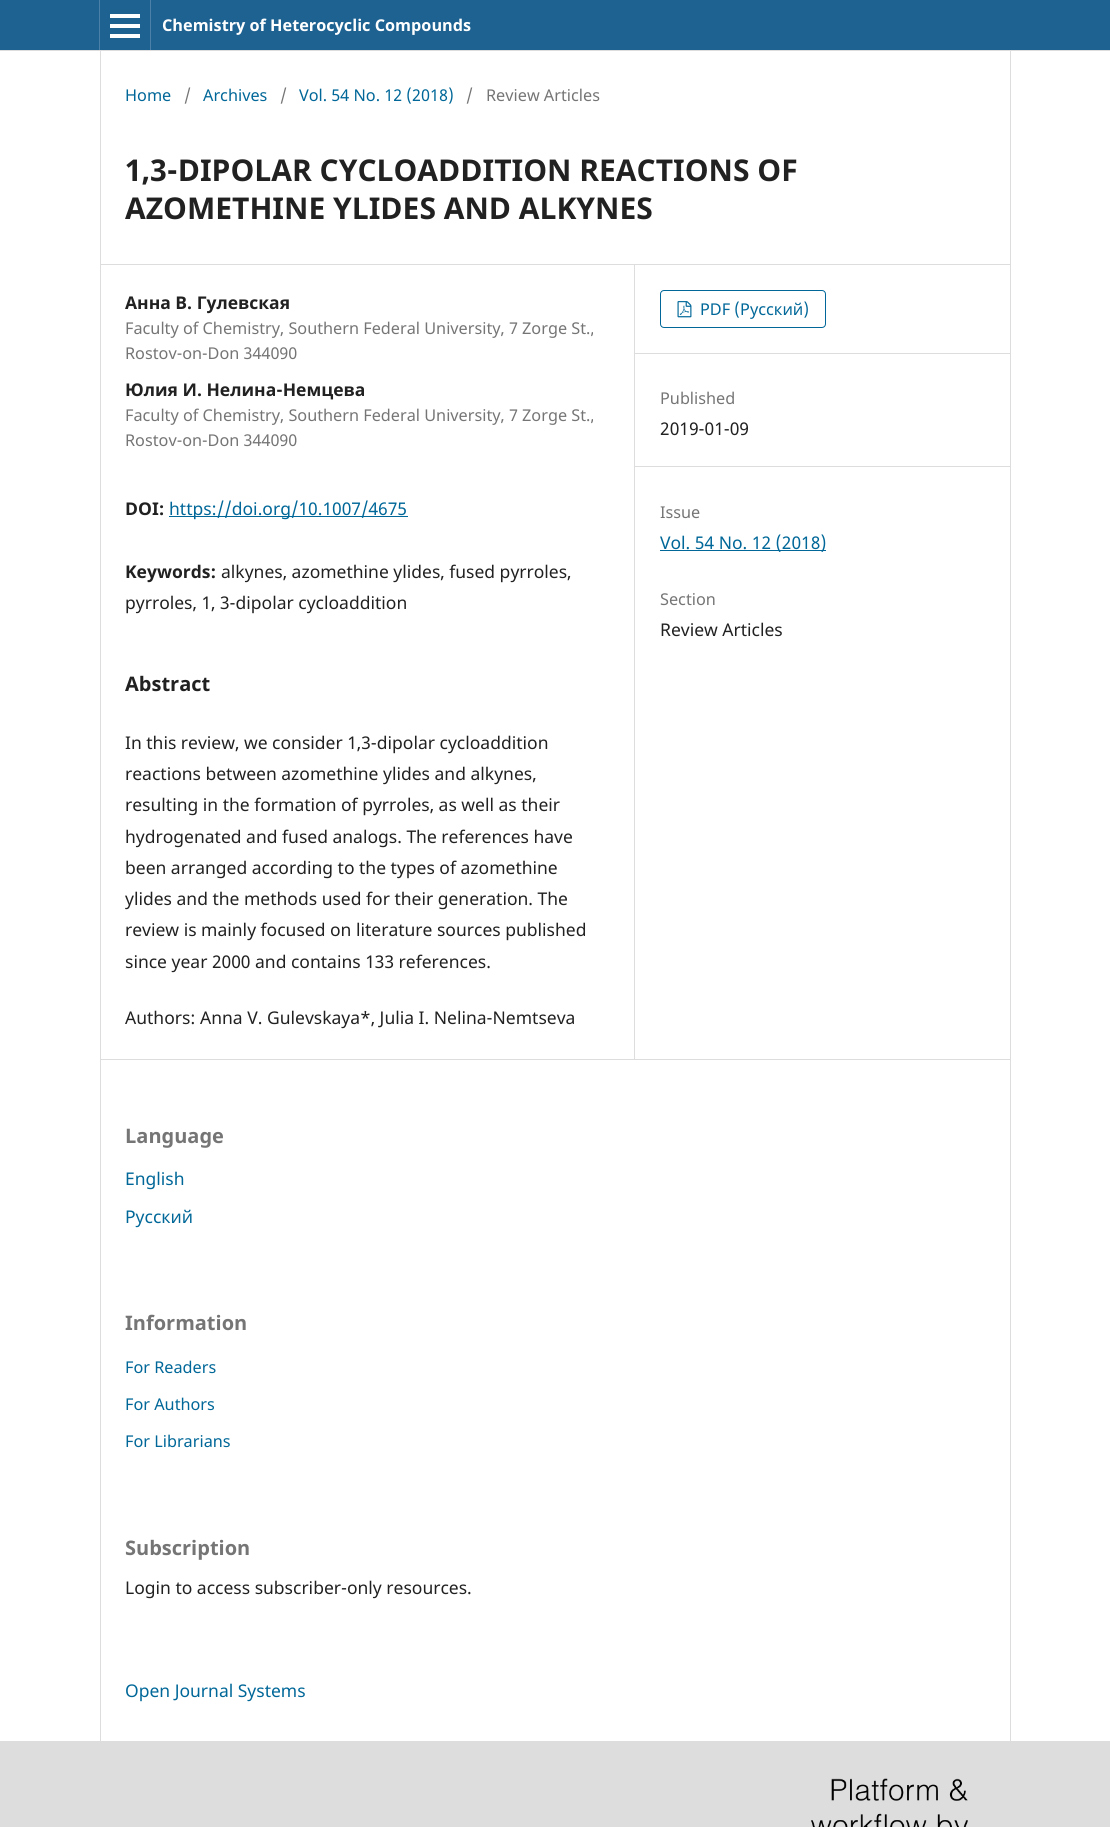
#include <cairo.h>
#include <math.h>
#include <stddef.h>

static cairo_t *c;
static void C(unsigned color){cairo_set_source_rgb(c, (color >> 16) / 255.0, (color >> 8 & 255) / 255.0, (color & 255) / 255.0);}
static void F(const char *family, double size, int italic, int bold){cairo_select_font_face(c, family, italic ? CAIRO_FONT_SLANT_ITALIC : CAIRO_FONT_SLANT_NORMAL,bold ? CAIRO_FONT_WEIGHT_BOLD : CAIRO_FONT_WEIGHT_NORMAL);cairo_set_font_size(c, size);}
static void T(double x, double y, const char *s){cairo_move_to(c, x, y);cairo_show_text(c, s);}
static void R(double x, double y, double w, double h){cairo_rectangle(c, x, y, w, h);cairo_fill(c);}
static void Q(double x, double y, double w, double h, double r){cairo_new_sub_path(c);cairo_arc(c, x + w - r, y + h - r, r, 0, M_PI / 2);cairo_arc(c, x + r, y + h - r, r, M_PI / 2, M_PI);cairo_arc(c, x + r, y + r, r, M_PI, 1.5 * M_PI);cairo_arc(c, x + w - r, y + r, r, 1.5 * M_PI, 2 * M_PI);cairo_close_path(c);}
static void I(const char *path, double x, double y, double w, double h){cairo_surface_t *image = cairo_image_surface_create_from_png(path);cairo_save(c);cairo_set_source_surface(c, image, x, y);cairo_rectangle(c, x, y, w, h);cairo_fill(c);cairo_restore(c);cairo_surface_destroy(image);}
int main(void) {
cairo_surface_t *surface = cairo_image_surface_create(CAIRO_FORMAT_RGB24, 1110, 1827);
c = cairo_create(surface);
cairo_font_options_t *options = cairo_font_options_create();
cairo_font_options_set_hint_metrics(options, CAIRO_HINT_METRICS_OFF);
cairo_font_options_set_hint_style(options, CAIRO_HINT_STYLE_NONE);
cairo_set_font_options(c, options);
cairo_set_miter_limit(c, 4);
C(0xffffff);
cairo_paint(c);
C(0x1e6292);
R(0,0,1110,50);
C(0xdddddd);
R(0,50,1110,1);
C(0x4b81a8);
R(99,0,1,50);
R(150,0,1,50);
C(0xffffff);
R(110,34,30,4);
R(110,14,30,4);
R(110,24,30,4);
F("Noto Sans",16.25,0,1);
T(162,31,"Chemistry of Heterocyclic Compounds");
C(0xdddddd);
R(100,264,910,1);
R(100,1059,910,1);
R(100,51,1,1690);
F("Noto Sans",16.25,0,0);
C(0x006798);
T(125,101,"Home");
C(0x757575);
T(184,101,"/");
C(0x006798);
T(203,101,"Archives");
C(0x757575);
T(280,101,"/");
C(0x006798);
T(299,101,"Vol. 54 No. 12 (2018)");
C(0x757575);
T(466,101,"/");
T(486,101,"Review Articles");
F("Noto Sans",30,0,1);
C(0x212121);
T(125,181,"1,3-DIPOLAR CYCLOADDITION REACTIONS OF");
T(125,219,"AZOMETHINE YLIDES AND ALKYNES");
C(0xdddddd);
R(634,265,1,794);
F("Noto Sans",17.5,0,1);
C(0x212121);
T(125,309,"Анна В. Гулевская");
F("Noto Sans",16.25,0,0);
C(0x757575);
T(125,334,"Faculty of Chemistry, Southern Federal University, 7 Zorge St.,");
T(125,359,"Rostov-on-Don 344090");
F("Noto Sans",17.5,0,1);
C(0x212121);
T(125,396,"Юлия И. Нелина-Немцева");
F("Noto Sans",16.25,0,0);
C(0x757575);
T(125,421,"Faculty of Chemistry, Southern Federal University, 7 Zorge St.,");
T(125,446,"Rostov-on-Don 344090");
F("Noto Sans",17.5,0,1);
C(0x212121);
T(125,515,"DOI:");
C(0x006798);
R(169,516,239,1);
F("Noto Sans",17.5,0,0);
T(169,515,"https://doi.org/10.1007/4675");
F("Noto Sans",17.5,0,1);
C(0x212121);
T(125,578,"Keywords:");
F("Noto Sans",17.5,0,0);
T(221,578,"alkynes, azomethine ylides, fused pyrroles,");
T(125,609,"pyrroles, 1, 3-dipolar cycloaddition");
F("Noto Sans",20,0,1);
T(125,691,"Abstract");
F("Noto Sans",17.5,0,0);
T(125,749,"In this review, we consider 1,3-dipolar cycloaddition");
T(125,780,"reactions between azomethine ylides and alkynes,");
T(125,811,"resulting in the formation of pyrroles, as well as their");
T(125,843,"hydrogenated and fused analogs. The references have");
T(125,874,"been arranged according to the types of azomethine");
T(125,905,"ylides and the methods used for their generation. The");
T(125,936,"review is mainly focused on literature sources published");
T(125,968,"since year 2000 and contains 133 references.");
T(125,1024,"Authors: Anna V. Gulevskaya*, Julia I. Nelina-Nemtseva");
C(0xdddddd);
R(635,353,375,1);
Q(660.5,290.5,165,37,3.5);
C(0x006798);
cairo_set_line_width(c,1);
cairo_stroke(c);
I("1.png",677,301,15,17);
F("Noto Sans",16.25,0,0);
T(700,315,"PDF (Русский)");
C(0xdddddd);
R(635,466,375,1);
C(0x757575);
T(660,404,"Published");
F("Noto Sans",17.5,0,0);
C(0x212121);
T(660,435,"2019-01-09");
F("Noto Sans",16.25,0,0);
C(0x757575);
T(660,518,"Issue");
C(0x006798);
R(660,550,166,1);
F("Noto Sans",17.5,0,0);
T(660,549,"Vol. 54 No. 12 (2018)");
F("Noto Sans",16.25,0,0);
C(0x757575);
T(660,605,"Section");
F("Noto Sans",17.5,0,0);
C(0x212121);
T(660,636,"Review Articles");
C(0xdddddd);
R(1010,51,1,1690);
F("Noto Sans",20,0,1);
C(0x757575);
T(125,1143,"Language");
F("Noto Sans",17.5,0,0);
C(0x006798);
T(125,1185,"English");
T(125,1223,"Русский");
F("Noto Sans",20,0,1);
C(0x757575);
T(125,1330,"Information");
F("Noto Sans",16.25,0,0);
C(0x006798);
T(125,1373,"For Readers");
T(125,1410,"For Authors");
T(125,1447,"For Librarians");
F("Noto Sans",20,0,1);
C(0x757575);
T(125,1555,"Subscription");
F("Noto Sans",17.5,0,0);
C(0x212121);
T(125,1594,"Login to access subscriber-only resources.");
C(0x006798);
T(125,1697,"Open Journal Systems");
C(0xdddddd);
R(0,1741,1110,86);
I("2.png",811,1778,157,49);
cairo_surface_write_to_png(surface, "o.png");
cairo_font_options_destroy(options);
cairo_destroy(c);
cairo_surface_destroy(surface);
return 0;
}
